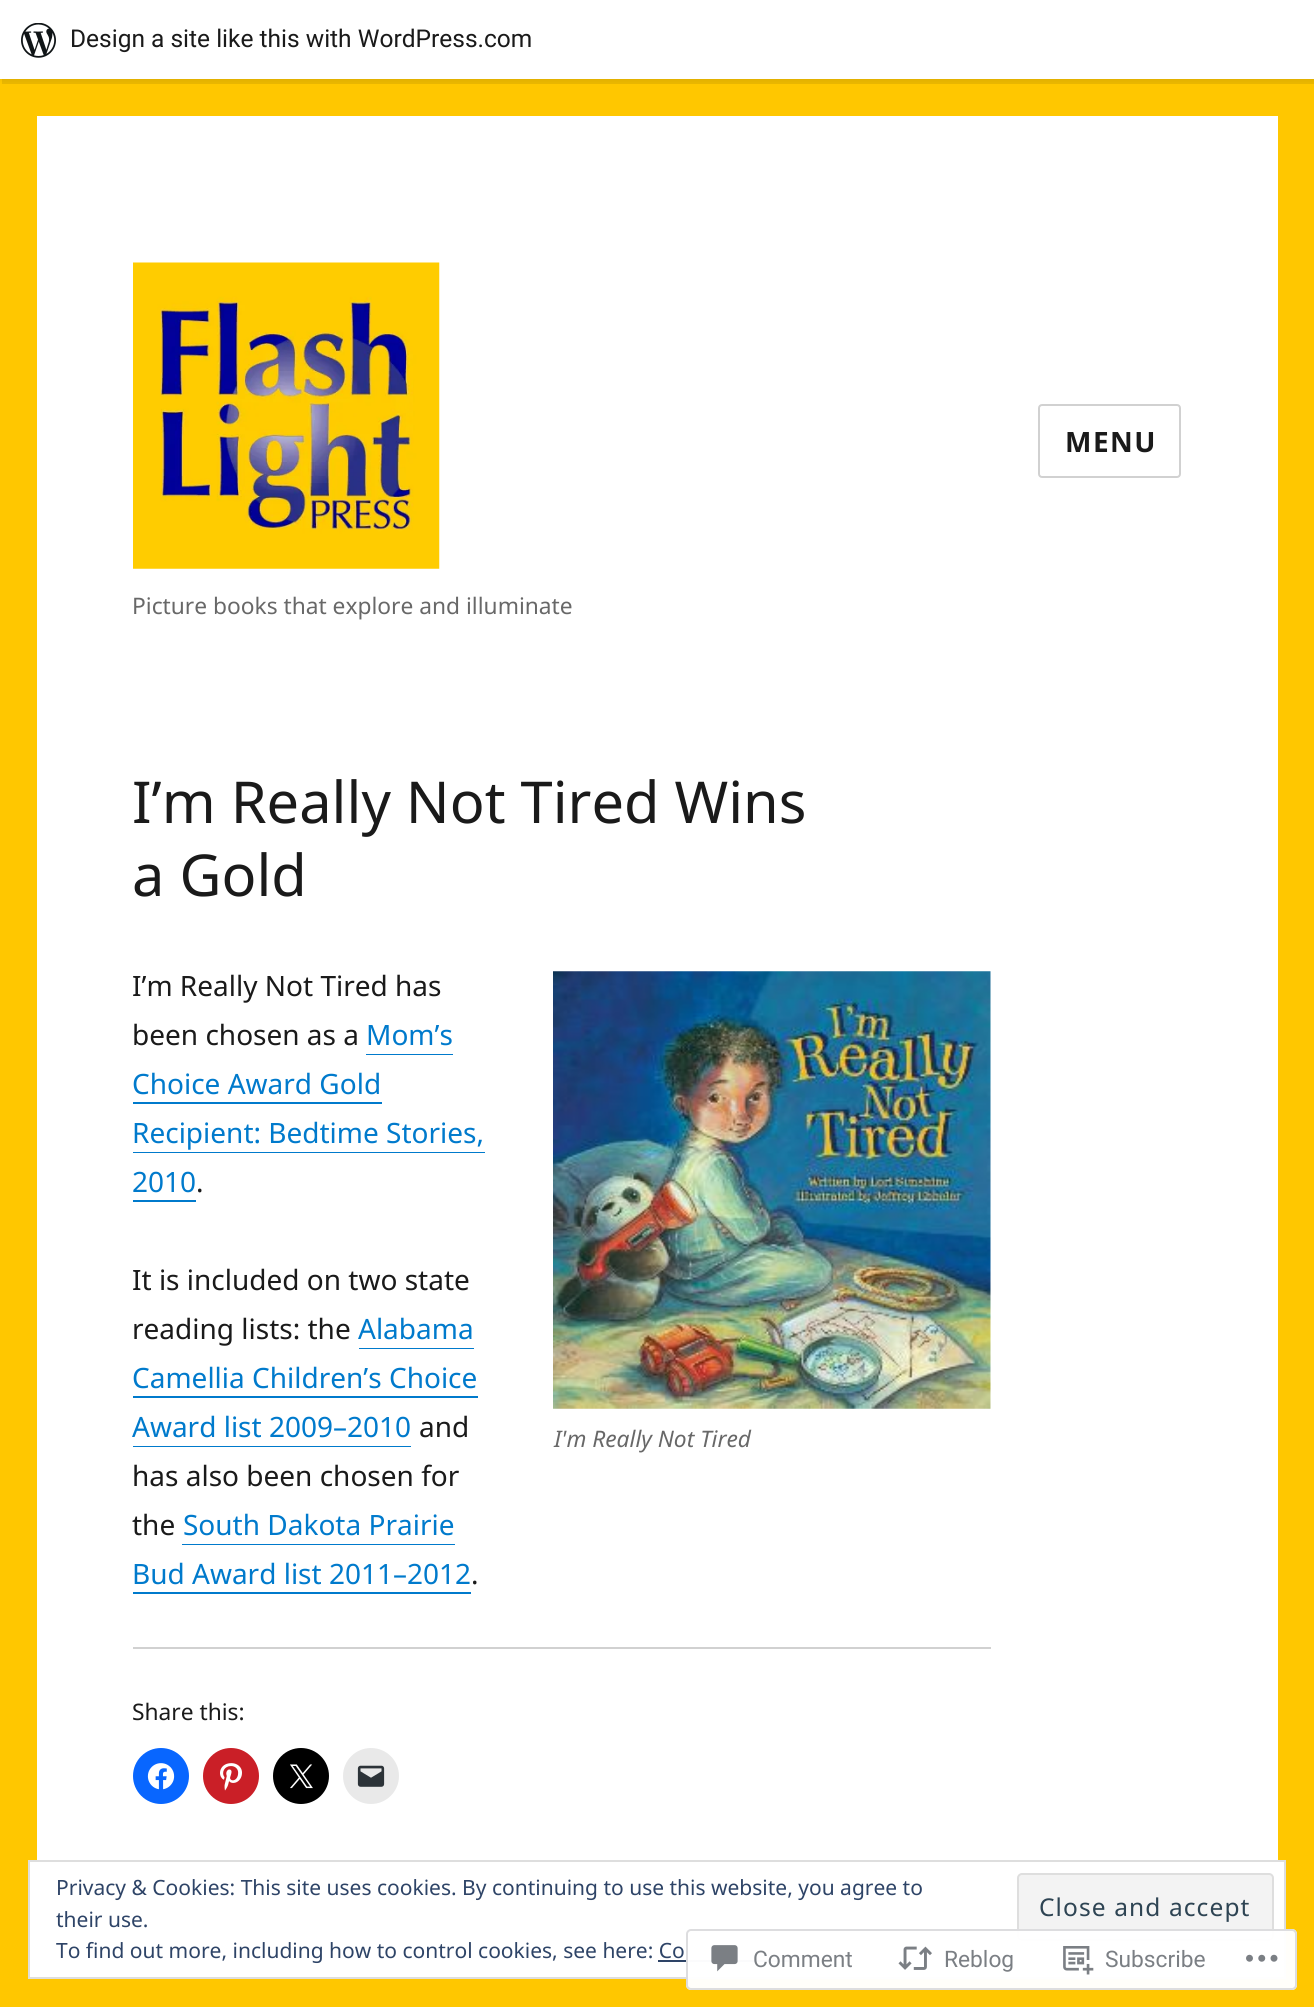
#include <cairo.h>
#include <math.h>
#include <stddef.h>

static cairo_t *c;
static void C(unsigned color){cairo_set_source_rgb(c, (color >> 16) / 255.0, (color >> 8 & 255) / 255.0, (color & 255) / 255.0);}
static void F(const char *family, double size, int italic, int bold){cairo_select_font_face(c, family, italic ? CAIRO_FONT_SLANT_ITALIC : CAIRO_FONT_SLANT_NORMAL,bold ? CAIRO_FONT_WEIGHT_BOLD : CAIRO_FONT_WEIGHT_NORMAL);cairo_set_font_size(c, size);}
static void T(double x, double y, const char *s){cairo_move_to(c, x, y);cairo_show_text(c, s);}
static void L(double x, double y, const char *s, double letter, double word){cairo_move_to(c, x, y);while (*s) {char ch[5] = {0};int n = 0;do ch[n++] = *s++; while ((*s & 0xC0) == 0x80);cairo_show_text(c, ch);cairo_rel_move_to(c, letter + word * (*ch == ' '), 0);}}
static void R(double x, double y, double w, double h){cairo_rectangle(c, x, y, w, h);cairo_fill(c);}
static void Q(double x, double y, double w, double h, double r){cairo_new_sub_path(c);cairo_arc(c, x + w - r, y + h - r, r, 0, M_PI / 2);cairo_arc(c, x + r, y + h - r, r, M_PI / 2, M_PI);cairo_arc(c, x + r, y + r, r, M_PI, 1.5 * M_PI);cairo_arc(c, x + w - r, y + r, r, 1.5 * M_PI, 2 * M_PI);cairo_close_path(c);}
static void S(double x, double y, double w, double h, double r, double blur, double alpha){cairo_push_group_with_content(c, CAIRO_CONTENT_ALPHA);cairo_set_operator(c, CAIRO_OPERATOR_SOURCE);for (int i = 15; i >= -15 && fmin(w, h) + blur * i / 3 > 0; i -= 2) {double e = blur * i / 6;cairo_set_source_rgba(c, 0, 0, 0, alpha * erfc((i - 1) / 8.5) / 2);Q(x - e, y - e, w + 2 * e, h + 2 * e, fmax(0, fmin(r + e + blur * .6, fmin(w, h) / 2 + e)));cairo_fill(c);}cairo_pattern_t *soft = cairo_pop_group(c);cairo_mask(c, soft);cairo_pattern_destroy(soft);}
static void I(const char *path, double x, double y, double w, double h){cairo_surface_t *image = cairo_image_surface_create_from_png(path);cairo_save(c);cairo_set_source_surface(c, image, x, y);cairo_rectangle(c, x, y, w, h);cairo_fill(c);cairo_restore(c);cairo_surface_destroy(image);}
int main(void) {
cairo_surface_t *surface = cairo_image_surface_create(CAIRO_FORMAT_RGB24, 1314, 2007);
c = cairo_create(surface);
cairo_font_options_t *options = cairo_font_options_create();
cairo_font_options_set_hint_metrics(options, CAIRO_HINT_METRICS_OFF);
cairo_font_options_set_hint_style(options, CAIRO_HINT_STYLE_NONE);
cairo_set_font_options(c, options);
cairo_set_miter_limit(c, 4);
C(0xffc700);
cairo_paint(c);
C(0x000000);
S(0,2,1314,79,0,2,.05);
cairo_set_source_rgba(c,0,0,0,0.08);
cairo_new_path(c);
cairo_move_to(c,2,79);
cairo_line_to(c,2,84);
cairo_line_to(c,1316,84);
cairo_line_to(c,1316,5);
cairo_line_to(c,1314,5);
cairo_line_to(c,1314,79);
cairo_close_path(c);
cairo_fill(c);
C(0xffffff);
R(0,0,1314,79);
I("1.png",21,23,35,35);
F("Roboto",24.5,0,0);
C(0x1a1a1a);
T(70,47,"Design a site like this with WordPress.com");
C(0xffffff);
R(37,116,1241,1744);
Q(1039,405,141,72,3);
C(0xd1d1d1);
cairo_stroke(c);
F("Noto Sans",28,0,1);
C(0x1a1a1a);
L(1065,452,"MENU",1.5,0);
I("2.png",133,262,307,307);
F("Noto Sans",22.75,0,0);
C(0x686868);
T(132,614,"Picture books that explore and illuminate");
F("Noto Sans",57.75,0,0);
C(0x1a1a1a);
T(132,823,"I’m Really Not Tired Wins");
T(132,896,"a Gold");
F("Noto Sans",28,0,0);
T(132,996,"I’m Really Not Tired has");
T(132,1045,"been chosen as a");
C(0x007acc);
T(366,1045,"Mom’s");
R(366,1054,87,1);
T(132,1094,"Choice Award Gold");
cairo_new_path(c);
cairo_move_to(c,133,1102);
cairo_line_to(c,133,1104);
cairo_line_to(c,382,1104);
cairo_line_to(c,382,1066);
cairo_line_to(c,382,1102);
cairo_close_path(c);
cairo_fill(c);
T(132,1143,"Recipient: Bedtime Stories,");
cairo_new_path(c);
cairo_move_to(c,133,1152);
cairo_line_to(c,133,1153);
cairo_line_to(c,485,1153);
cairo_line_to(c,485,1115);
cairo_line_to(c,485,1152);
cairo_close_path(c);
cairo_fill(c);
T(132,1192,"2010");
R(133,1200,63,2);
C(0x1a1a1a);
T(196,1192,".");
T(132,1290,"It is included on two state");
T(132,1339,"reading lists: the");
C(0x007acc);
T(358,1339,"Alabama");
R(359,1348,115,1);
T(132,1388,"Camellia Children’s Choice");
cairo_new_path(c);
cairo_move_to(c,133,1396);
cairo_line_to(c,133,1398);
cairo_line_to(c,478,1398);
cairo_line_to(c,478,1360);
cairo_line_to(c,478,1396);
cairo_close_path(c);
cairo_fill(c);
T(132,1437,"Award list 2009–2010");
R(133,1446,278,1);
C(0x1a1a1a);
T(419,1437,"and");
T(132,1486,"has also been chosen for");
T(132,1535,"the");
C(0x007acc);
T(183,1535,"South Dakota Prairie");
R(182,1544,273,1);
T(132,1584,"Bud Award list 2011–2012");
cairo_new_path(c);
cairo_move_to(c,133,1592);
cairo_line_to(c,133,1594);
cairo_line_to(c,471,1594);
cairo_line_to(c,471,1556);
cairo_line_to(c,471,1592);
cairo_close_path(c);
cairo_fill(c);
C(0x1a1a1a);
T(471,1584,".");
I("3.png",553,971,438,438);
F("Noto Sans",22.75,1,0);
C(0x686868);
T(554,1447,"I'm Really Not Tired");
C(0xd1d1d1);
R(133,1647,858,2);
F("Noto Sans",22.75,0,0);
C(0x1a1a1a);
T(132,1720,"Share this:");
C(0x0866ff);
cairo_new_path(c);
cairo_arc(c,161,1776,28,0,2 * M_PI);
cairo_fill(c);
I("4.png",147,1763,28,27);
C(0xca1f27);
cairo_arc(c,231,1776,28,0,2 * M_PI);
cairo_fill(c);
I("5.png",220,1763,22,28);
C(0x000000);
cairo_arc(c,301,1776,28,0,2 * M_PI);
cairo_fill(c);
I("6.png",290,1764,23,25);
C(0xe9e9e9);
cairo_arc(c,371,1776,28,0,2 * M_PI);
cairo_fill(c);
I("7.png",357,1765,28,22);
C(0xffffff);
cairo_rectangle(c,29,1861,1256,117);
cairo_fill_preserve(c);
C(0xdedede);
cairo_stroke(c);
F("Noto Sans",21,0,0);
C(0x2e4467);
T(56,1895,"Privacy & Cookies: This site uses cookies. By continuing to use this website, you agree to");
T(56,1927,"their use.");
C(0xf3f3f3);
Q(1018,1874,255,66,4);
cairo_fill_preserve(c);
C(0xdedede);
cairo_stroke(c);
F("Noto Sans",24.5,0,0);
C(0x2e4453);
L(1039,1916,"Close and accept",1.1,0);
F("Noto Sans",21,0,0);
C(0x2e4467);
T(56,1958,"To find out more, including how to control cookies, see here: Co");
R(658,1960,131,2);
cairo_set_source_rgba(c,1,1,1,0.98);
Q(686,1929,611,61,5);
cairo_fill(c);
Q(687,1930,609,59,4);
cairo_set_source_rgba(c,0.863,0.863,0.871,0.98);
cairo_stroke(c);
I("8.png",711,1945,27,27);
F("Roboto",22.75,0,0);
C(0x7b7f84);
T(753,1967,"Comment");
I("9.png",898,1946,34,24);
T(944,1967,"Reblog");
I("10.png",1063,1946,31,29);
T(1105,1967,"Subscribe");
I("11.png",1246,1954,32,8);
cairo_surface_write_to_png(surface, "o.png");
cairo_font_options_destroy(options);
cairo_destroy(c);
cairo_surface_destroy(surface);
return 0;
}
